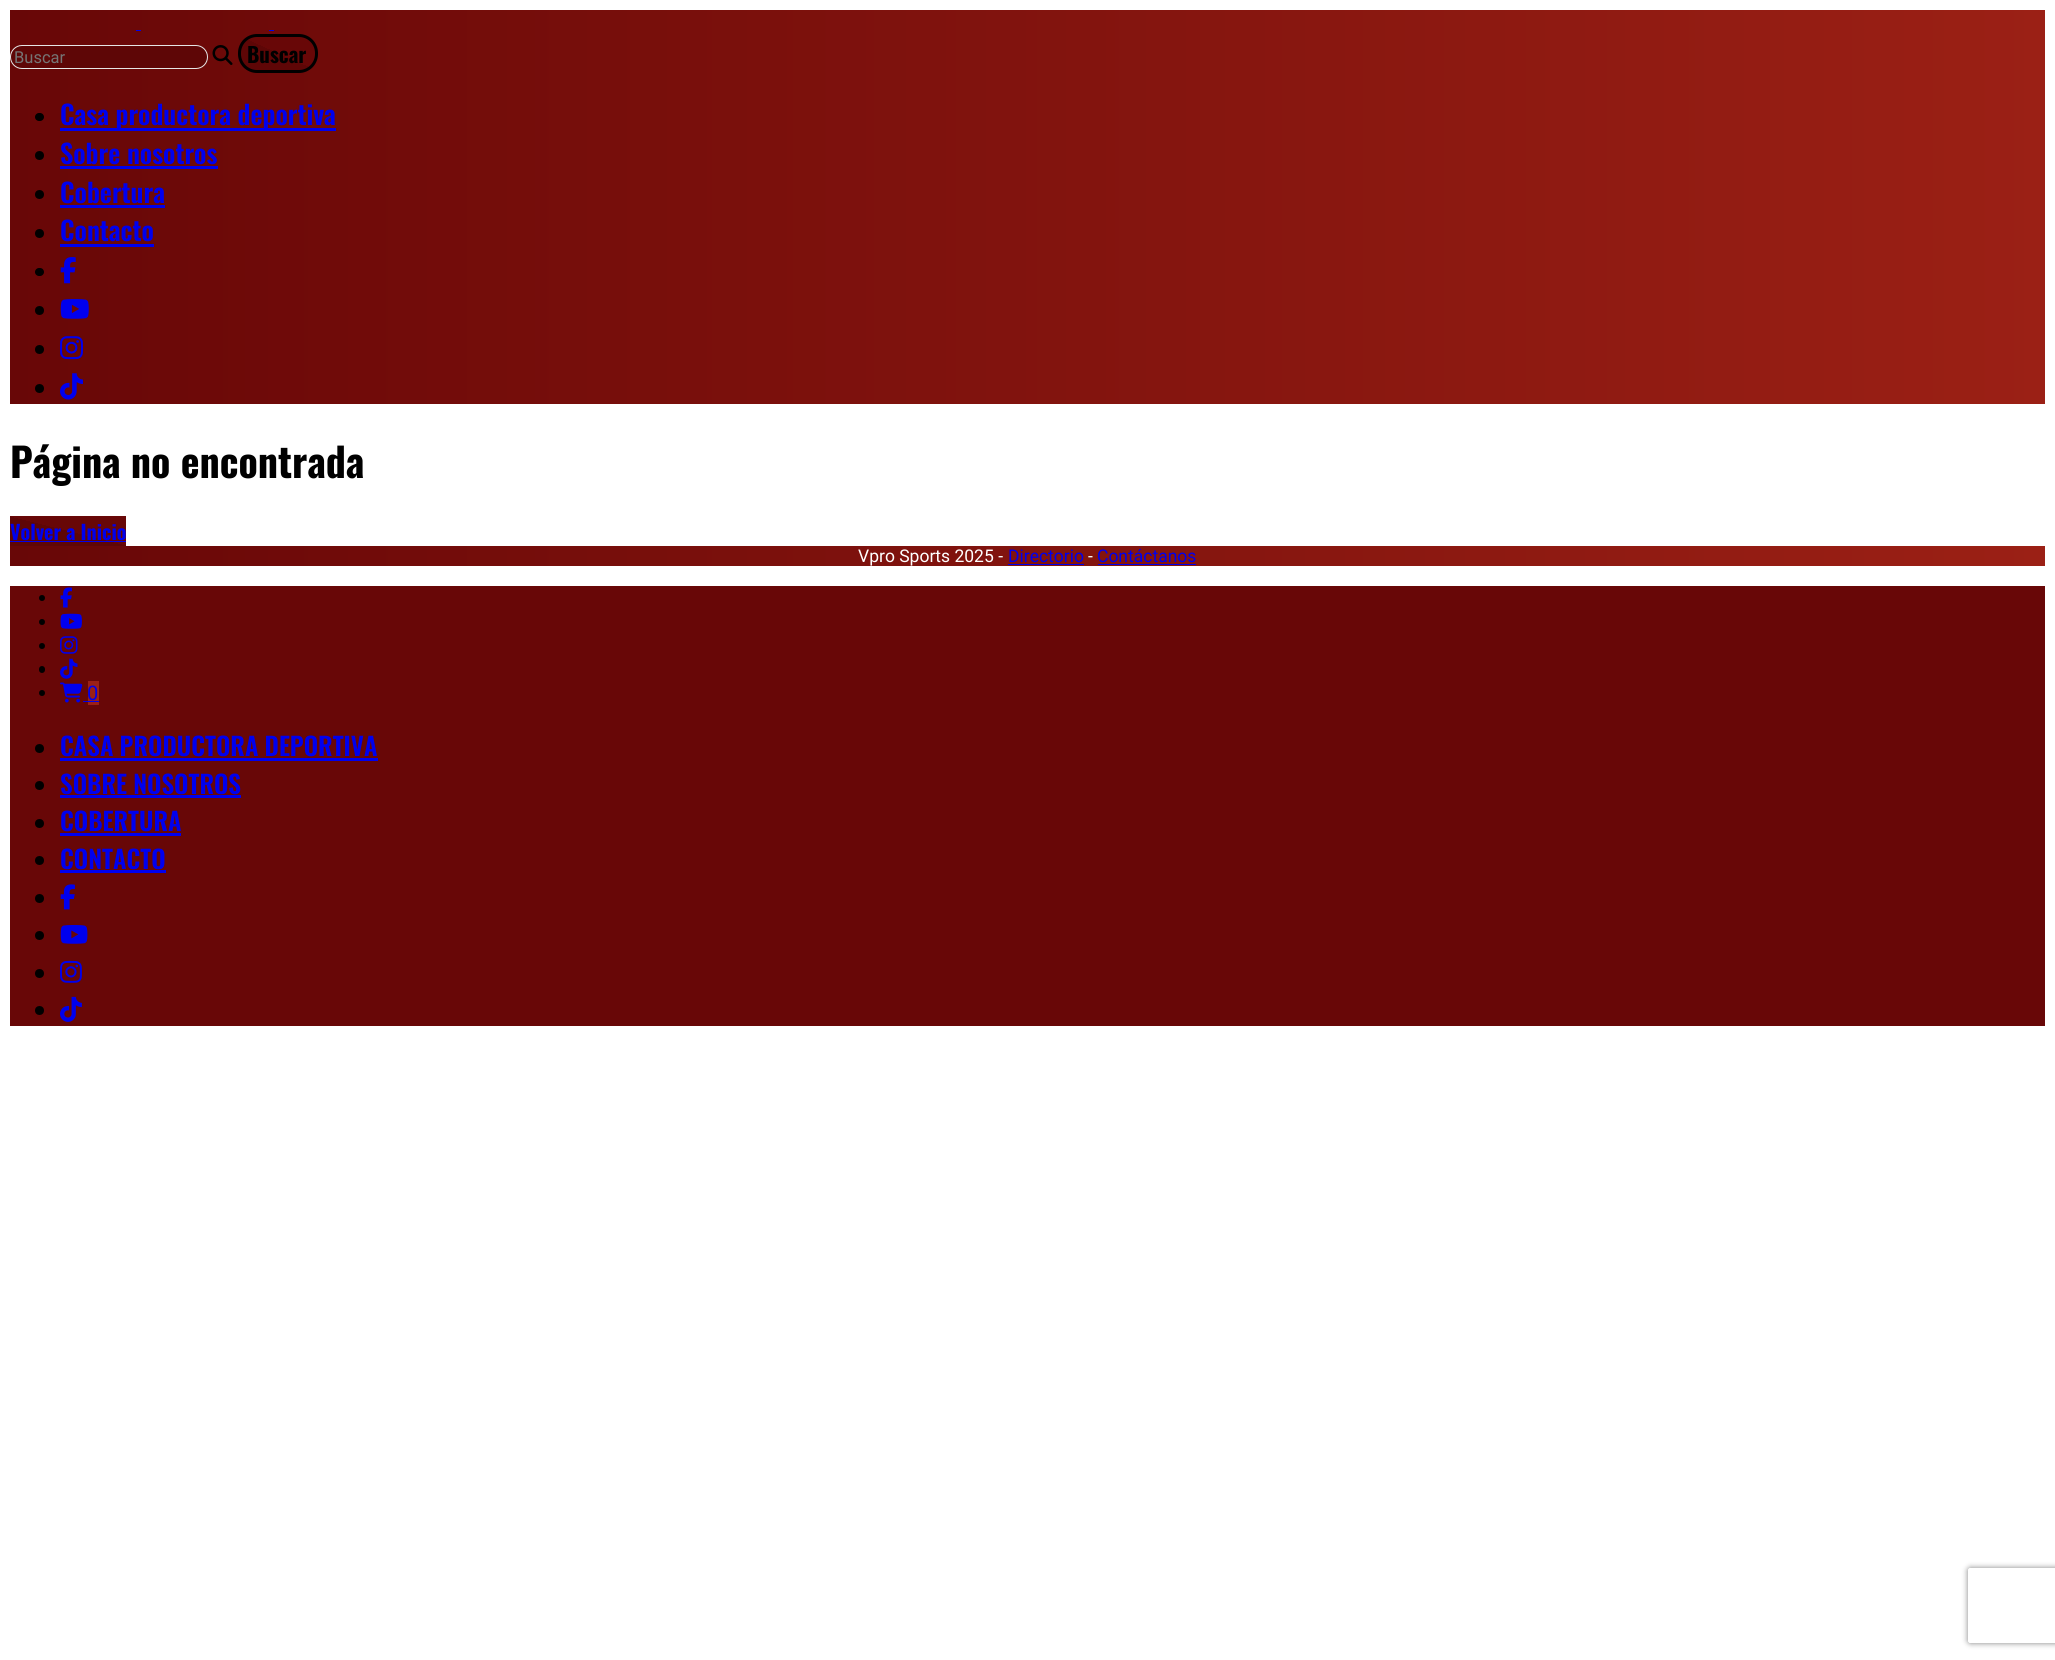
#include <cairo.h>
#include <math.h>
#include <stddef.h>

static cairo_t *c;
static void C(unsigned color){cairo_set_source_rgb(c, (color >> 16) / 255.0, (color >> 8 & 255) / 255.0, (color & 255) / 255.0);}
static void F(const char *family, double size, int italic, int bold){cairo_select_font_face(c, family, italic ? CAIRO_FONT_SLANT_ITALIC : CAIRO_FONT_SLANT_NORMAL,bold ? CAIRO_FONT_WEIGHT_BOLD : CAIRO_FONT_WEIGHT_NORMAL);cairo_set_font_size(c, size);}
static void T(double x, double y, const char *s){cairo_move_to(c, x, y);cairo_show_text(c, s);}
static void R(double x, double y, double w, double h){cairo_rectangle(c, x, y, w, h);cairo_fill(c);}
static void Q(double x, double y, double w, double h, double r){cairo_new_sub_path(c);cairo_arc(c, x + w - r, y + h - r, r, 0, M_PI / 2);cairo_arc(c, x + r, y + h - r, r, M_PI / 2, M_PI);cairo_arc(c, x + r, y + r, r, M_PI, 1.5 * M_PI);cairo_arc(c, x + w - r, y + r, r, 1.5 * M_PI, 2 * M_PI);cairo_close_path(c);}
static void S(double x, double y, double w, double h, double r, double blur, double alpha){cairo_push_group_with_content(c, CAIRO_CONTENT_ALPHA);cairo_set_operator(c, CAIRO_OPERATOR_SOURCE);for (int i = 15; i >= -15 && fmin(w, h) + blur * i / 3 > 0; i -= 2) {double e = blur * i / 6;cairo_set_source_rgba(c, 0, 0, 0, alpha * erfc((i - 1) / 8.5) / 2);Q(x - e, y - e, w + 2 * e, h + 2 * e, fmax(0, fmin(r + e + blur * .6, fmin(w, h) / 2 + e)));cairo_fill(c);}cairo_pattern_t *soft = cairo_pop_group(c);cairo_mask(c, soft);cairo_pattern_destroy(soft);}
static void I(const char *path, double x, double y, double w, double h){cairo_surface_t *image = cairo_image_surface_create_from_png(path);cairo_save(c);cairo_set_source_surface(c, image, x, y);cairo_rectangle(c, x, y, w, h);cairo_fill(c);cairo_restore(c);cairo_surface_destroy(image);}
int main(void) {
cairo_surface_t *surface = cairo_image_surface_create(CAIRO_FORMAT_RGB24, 2055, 1660);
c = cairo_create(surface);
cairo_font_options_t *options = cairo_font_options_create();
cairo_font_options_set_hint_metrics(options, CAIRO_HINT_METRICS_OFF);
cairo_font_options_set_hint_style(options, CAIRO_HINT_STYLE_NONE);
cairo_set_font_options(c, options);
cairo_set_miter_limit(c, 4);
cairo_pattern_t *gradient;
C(0xffffff);
cairo_paint(c);
gradient = cairo_pattern_create_linear(10,207,2045,207);
cairo_pattern_add_color_stop_rgba(gradient,0,0.408,0.027,0.027,1);
cairo_pattern_add_color_stop_rgba(gradient,1,0.608,0.125,0.082,1);
cairo_set_source(c,gradient);
cairo_pattern_destroy(gradient);
R(10,10,2035,394);
C(0x0000ee);
R(136,30,5,1);
R(269,30,5,1);
C(0x5e0606);
Q(10.5,45.5,197,23,11.5);
cairo_fill_preserve(c);
C(0xe5e5e5);
cairo_set_line_width(c,1);
cairo_stroke(c);
F("Roboto",16.5,0,0);
C(0x757575);
T(14,63,"Buscar");
I("1.png",212,45,21,20);
cairo_save(c);
Q(238,34,80,39,19);
cairo_clip(c);
gradient = cairo_pattern_create_linear(290,25,265,81);
cairo_pattern_add_color_stop_rgba(gradient,.5,0.408,0.027,0.027,1);
cairo_pattern_add_color_stop_rgba(gradient,.5,0.369,0.024,0.024,1);
cairo_set_source(c,gradient);
cairo_pattern_destroy(gradient);
R(240,36,75,34);
cairo_restore(c);
Q(239.5,35.5,77,36,17.5);
C(0x000000);
cairo_set_line_width(c,3);
cairo_stroke(c);
F("Oswald",21,0,1);
T(247,63,"Buscar");
Q(35,113,9,8,4);
cairo_fill(c);
C(0x0000ee);
R(60,128,276,3);
F("Oswald SemiBold",26.25,0,0);
T(60,125,"Casa productora deportiva");
C(0x000000);
cairo_new_path(c);
cairo_arc(c,39.5,155.5,4.5,0,2 * M_PI);
cairo_fill(c);
C(0x0000ee);
T(60,164,"Sobre nosotros");
R(60,166,158,3);
C(0x000000);
cairo_new_path(c);
cairo_arc(c,39.5,194.5,4.5,0,2 * M_PI);
cairo_fill(c);
C(0x0000ee);
T(60,203,"Cobertura");
R(60,205,105,3);
C(0x000000);
cairo_new_path(c);
cairo_arc(c,39.5,233.5,4.5,0,2 * M_PI);
cairo_fill(c);
C(0x0000ee);
T(60,241,"Contacto");
R(60,244,94,3);
C(0x000000);
Q(35,268,9,8,4);
cairo_fill(c);
I("2.png",60,257,16,27);
cairo_arc(c,39.5,310.5,4.5,0,2 * M_PI);
cairo_fill(c);
I("3.png",60,299,29,20);
cairo_arc(c,39.5,349.5,4.5,0,2 * M_PI);
cairo_fill(c);
I("4.png",60,336,23,24);
cairo_arc(c,39.5,388.5,4.5,0,2 * M_PI);
cairo_fill(c);
I("5.png",60,373,23,27);
F("Oswald",40,0,1);
T(10,478,"Página no encontrada");
gradient = cairo_pattern_create_linear(75,503,61,559);
cairo_pattern_add_color_stop_rgba(gradient,.5,0.408,0.027,0.027,1);
cairo_pattern_add_color_stop_rgba(gradient,.5,0.369,0.024,0.024,1);
cairo_set_source(c,gradient);
cairo_pattern_destroy(gradient);
R(10,516,116,30);
F("Oswald",20,0,1);
C(0x0000ee);
T(10,540,"Volver a Inicio");
R(10,541,116,1);
gradient = cairo_pattern_create_linear(10,556,2045,556);
cairo_pattern_add_color_stop_rgba(gradient,0,0.408,0.027,0.027,1);
cairo_pattern_add_color_stop_rgba(gradient,1,0.608,0.125,0.082,1);
cairo_set_source(c,gradient);
cairo_pattern_destroy(gradient);
R(10,546,2035,20);
F("Roboto",17.5,0,0);
C(0xffffff);
T(858,562,"Vpro Sports 2025 -");
C(0x0000ee);
T(1008,562,"Directorio");
R(1008,564,76,1);
C(0xffffff);
T(1088,562,"-");
C(0x0000ee);
T(1097,562,"Contáctanos");
R(1098,564,98,1);
C(0x680707);
R(10,586,2035,440);
C(0x000000);
cairo_new_path(c);
cairo_arc(c,42,598,3,0,2 * M_PI);
cairo_fill(c);
I("6.png",60,587,12,21);
cairo_arc(c,42,622,3,0,2 * M_PI);
cairo_fill(c);
I("7.png",60,613,22,16);
cairo_arc(c,42,646,3,0,2 * M_PI);
cairo_fill(c);
I("8.png",60,636,18,18);
Q(39,666,6,7,3);
cairo_fill(c);
I("9.png",60,658,18,21);
cairo_arc(c,42,693,3,0,2 * M_PI);
cairo_fill(c);
I("10.png",60,682,23,21);
C(0x9b2016);
R(88,681,11,24);
F("Roboto",20,0,0);
C(0x0000ee);
T(87,700,"0");
R(88,701,11,1);
R(83,701,5,1);
C(0x000000);
cairo_new_path(c);
cairo_arc(c,39.5,748.5,4.5,0,2 * M_PI);
cairo_fill(c);
F("Oswald SemiBold",25,0,0);
C(0x0000ee);
T(60,756,"CASA PRODUCTORA DEPORTIVA");
R(60,758,318,3);
C(0x000000);
cairo_new_path(c);
cairo_arc(c,39.5,785.5,4.5,0,2 * M_PI);
cairo_fill(c);
C(0x0000ee);
T(60,794,"SOBRE NOSOTROS");
R(60,795,181,3);
C(0x000000);
cairo_new_path(c);
cairo_arc(c,39.5,823.5,4.5,0,2 * M_PI);
cairo_fill(c);
C(0x0000ee);
T(60,831,"COBERTURA");
R(60,833,121,3);
C(0x000000);
cairo_new_path(c);
cairo_arc(c,39.5,860.5,4.5,0,2 * M_PI);
cairo_fill(c);
C(0x0000ee);
T(60,869,"CONTACTO");
R(60,870,106,3);
C(0x000000);
cairo_new_path(c);
cairo_arc(c,39.5,898.5,4.5,0,2 * M_PI);
cairo_fill(c);
I("11.png",60,884,15,26);
cairo_arc(c,39.5,935.5,4.5,0,2 * M_PI);
cairo_fill(c);
I("12.png",60,925,28,19);
cairo_arc(c,39.5,973.5,4.5,0,2 * M_PI);
cairo_fill(c);
I("13.png",60,960,22,23);
cairo_arc(c,39.5,1010.5,4.5,0,2 * M_PI);
cairo_fill(c);
I("14.png",60,996,22,26);
cairo_save(c);
cairo_set_fill_rule(c,CAIRO_FILL_RULE_EVEN_ODD);
cairo_new_path(c);
cairo_move_to(c,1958,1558);
cairo_line_to(c,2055,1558);
cairo_line_to(c,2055,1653);
cairo_line_to(c,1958,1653);
cairo_close_path(c);
cairo_move_to(c,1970.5,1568);
cairo_line_to(c,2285.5,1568);
cairo_curve_to(c,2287,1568,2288,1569,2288,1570.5);
cairo_line_to(c,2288,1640.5);
cairo_curve_to(c,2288,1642,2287,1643,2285.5,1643);
cairo_line_to(c,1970.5,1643);
cairo_curve_to(c,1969,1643,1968,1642,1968,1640.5);
cairo_line_to(c,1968,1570.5);
cairo_curve_to(c,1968,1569,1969,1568,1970.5,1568);
cairo_close_path(c);
cairo_clip(c);
C(0x808080);
S(1968,1568,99,75,2.5,3,1);
cairo_restore(c);
cairo_surface_write_to_png(surface, "o.png");
cairo_font_options_destroy(options);
cairo_destroy(c);
cairo_surface_destroy(surface);
return 0;
}
